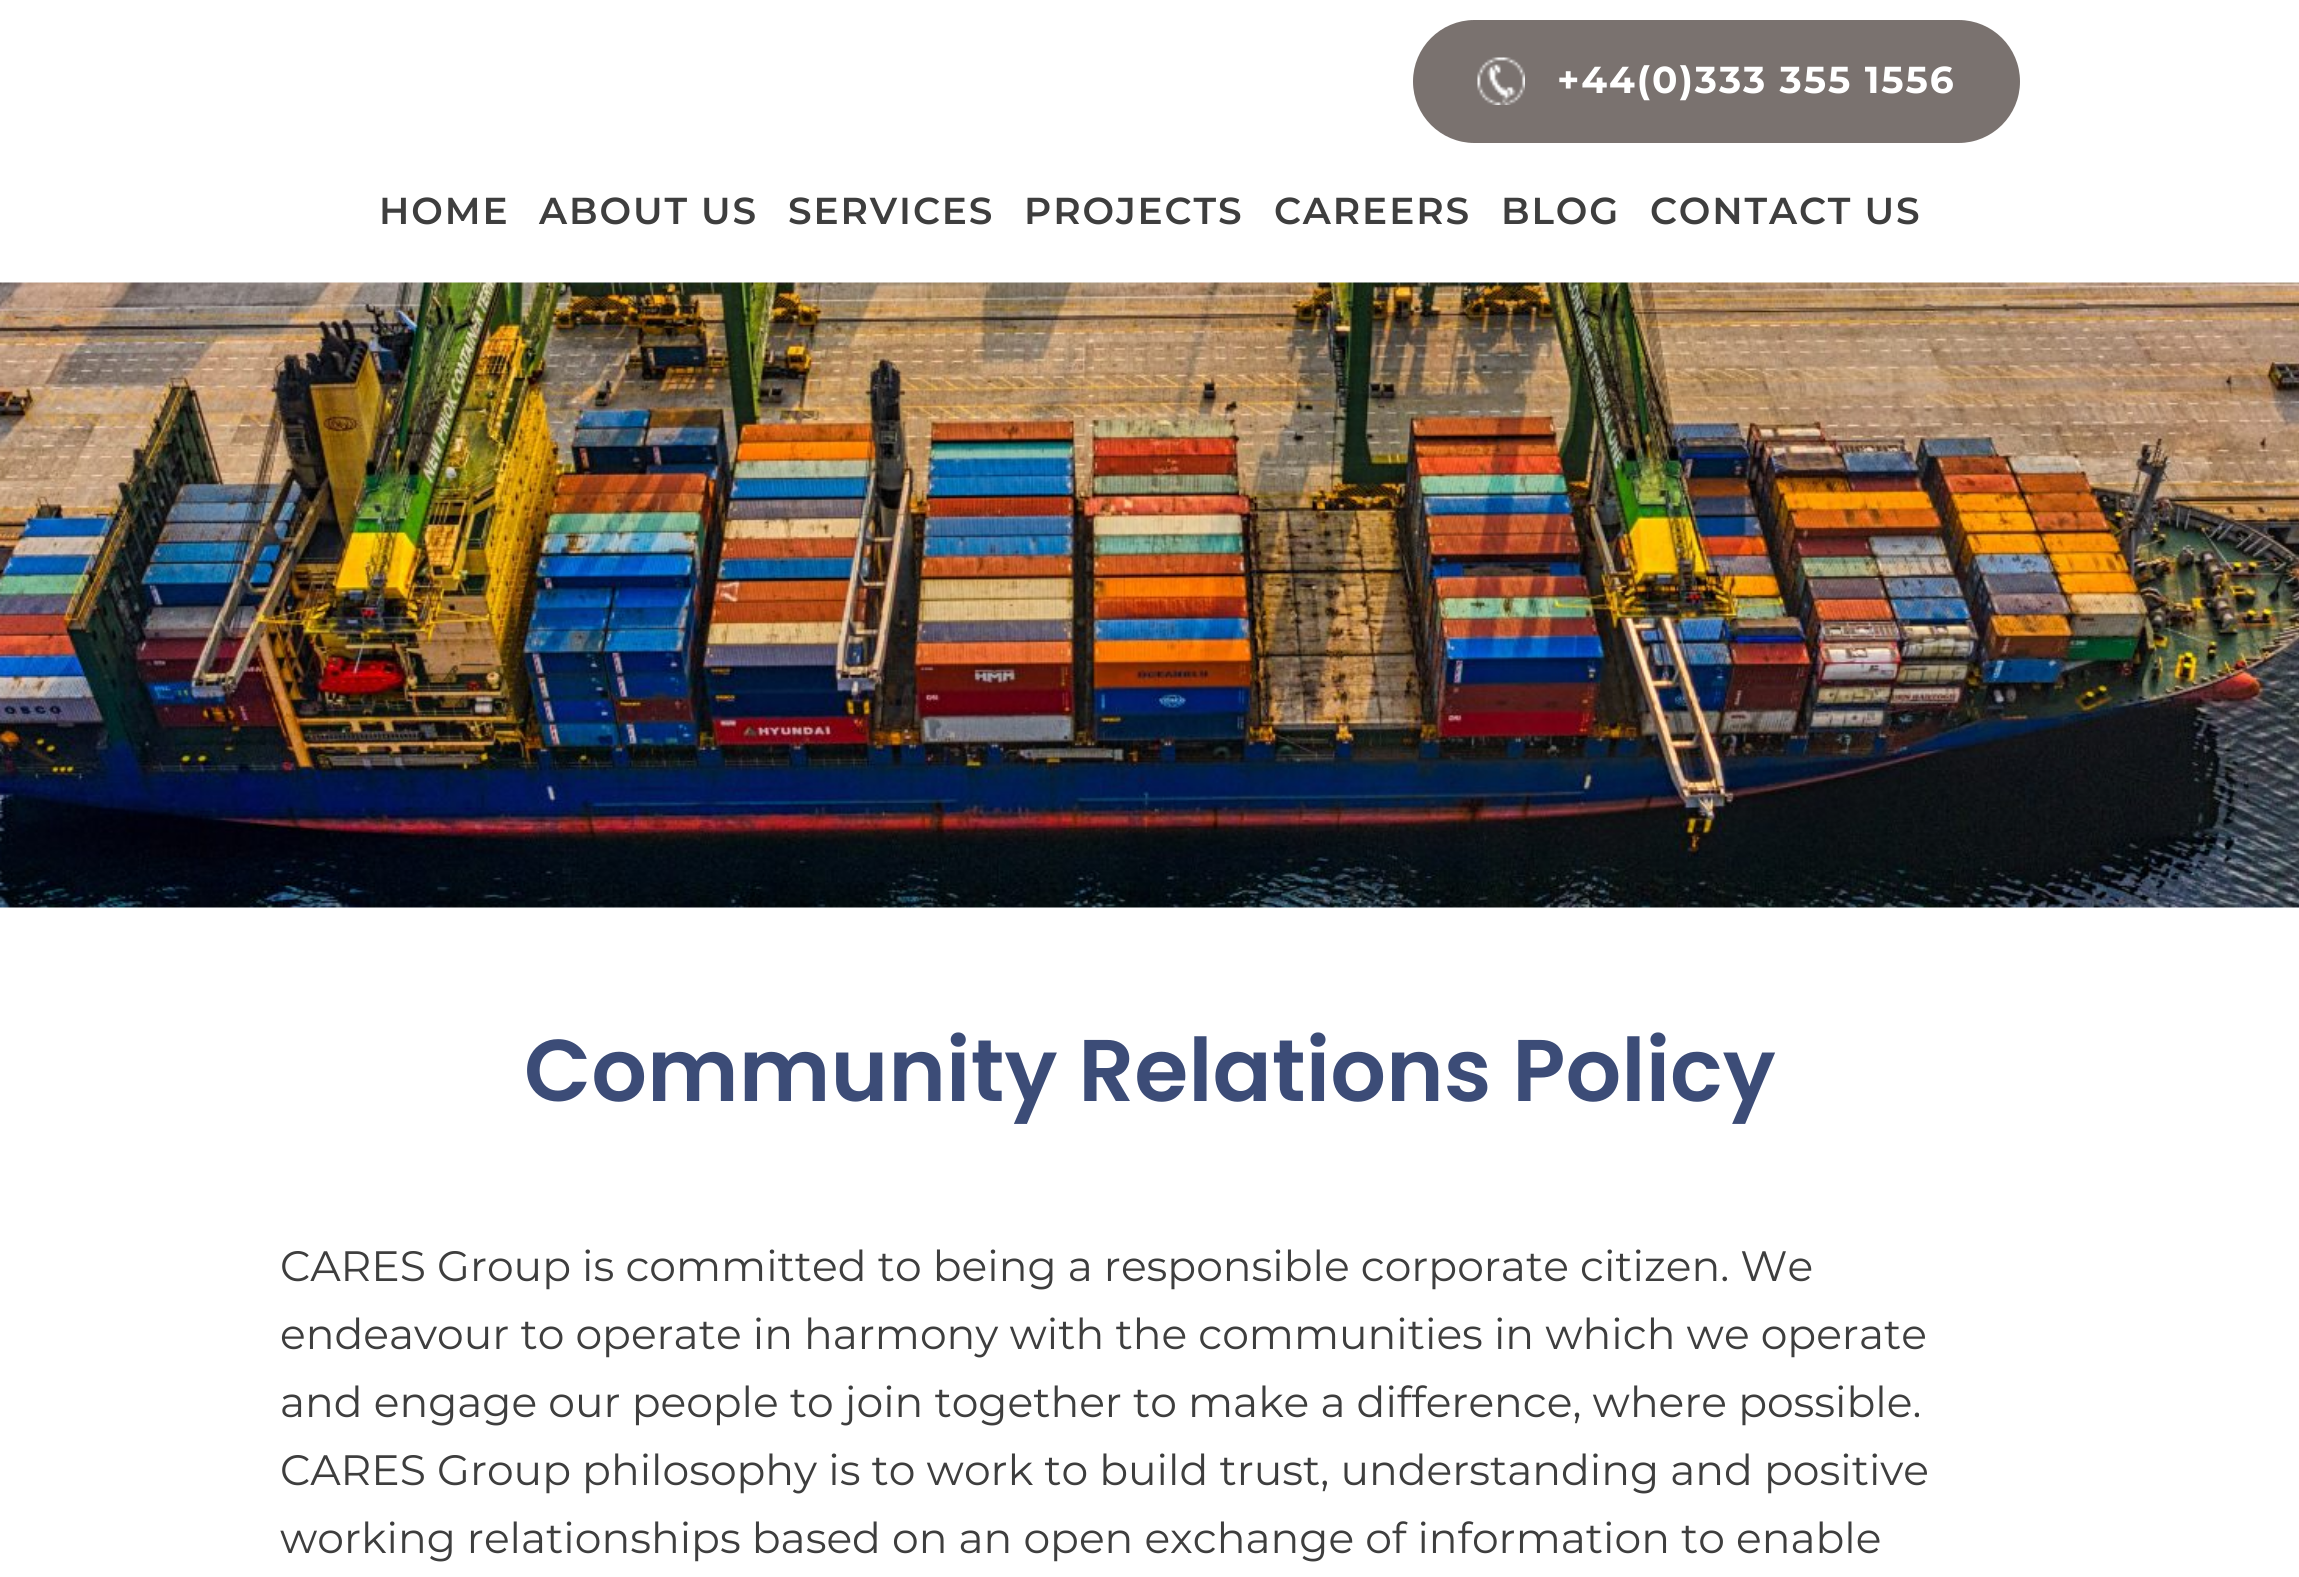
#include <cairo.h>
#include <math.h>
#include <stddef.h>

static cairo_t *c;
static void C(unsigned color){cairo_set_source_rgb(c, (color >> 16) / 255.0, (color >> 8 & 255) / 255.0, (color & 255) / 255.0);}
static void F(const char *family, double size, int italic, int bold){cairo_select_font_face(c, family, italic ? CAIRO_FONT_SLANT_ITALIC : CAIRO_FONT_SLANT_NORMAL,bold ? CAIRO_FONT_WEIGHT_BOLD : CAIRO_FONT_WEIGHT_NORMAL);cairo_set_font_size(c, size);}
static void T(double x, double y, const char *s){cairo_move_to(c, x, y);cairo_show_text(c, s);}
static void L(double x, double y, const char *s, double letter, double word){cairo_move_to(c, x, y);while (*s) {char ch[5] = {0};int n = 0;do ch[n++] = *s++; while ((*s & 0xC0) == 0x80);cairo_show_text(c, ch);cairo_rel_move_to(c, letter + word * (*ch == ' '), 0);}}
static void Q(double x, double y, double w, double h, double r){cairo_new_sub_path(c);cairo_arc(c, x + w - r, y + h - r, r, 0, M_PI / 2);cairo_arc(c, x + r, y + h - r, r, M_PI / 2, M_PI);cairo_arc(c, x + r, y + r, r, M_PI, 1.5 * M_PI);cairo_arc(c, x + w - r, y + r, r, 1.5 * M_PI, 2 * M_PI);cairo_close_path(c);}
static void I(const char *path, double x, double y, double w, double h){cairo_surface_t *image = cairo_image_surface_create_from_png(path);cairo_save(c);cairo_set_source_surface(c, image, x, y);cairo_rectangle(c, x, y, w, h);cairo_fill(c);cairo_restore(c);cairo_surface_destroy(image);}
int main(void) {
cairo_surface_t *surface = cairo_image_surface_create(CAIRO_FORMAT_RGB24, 2299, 1577);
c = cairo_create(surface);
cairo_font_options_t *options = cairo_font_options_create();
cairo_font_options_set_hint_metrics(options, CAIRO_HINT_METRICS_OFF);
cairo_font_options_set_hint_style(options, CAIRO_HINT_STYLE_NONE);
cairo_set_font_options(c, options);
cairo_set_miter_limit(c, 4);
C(0xffffff);
cairo_paint(c);
C(0x7a726f);
Q(1414.5,21.5,604,120,60);
cairo_fill_preserve(c);
cairo_set_line_width(c,3);
cairo_stroke(c);
I("1.png",1477,57,48,48);
F("Montserrat",37.5,0,1);
C(0xffffff);
L(1557,93,"+44(0)333 355 1556",1.9,0);
F("Montserrat SemiBold",37.5,0,0);
C(0x3e3e3e);
L(379,224,"HOME",1.9,0);
L(539,224,"ABOUT US",1.9,0);
L(788,224,"SERVICES",1.9,0);
L(1024,224,"PROJECTS",1.9,0);
L(1274,224,"CAREERS",1.9,0);
L(1501,224,"BLOG",1.9,0);
L(1650,224,"CONTACT US",1.9,0);
I("2.png",0,282,2299,626);
F("Poppins SemiBold",87.5,0,0);
C(0x3c4c77);
T(524,1101,"Community Relations Policy");
F("Montserrat",42.5,0,0);
C(0x3e3e3e);
T(280,1281,"CARES Group is committed to being a responsible corporate citizen. We");
T(280,1349,"endeavour to operate in harmony with the communities in which we operate");
T(280,1417,"and engage our people to join together to make a difference, where possible.");
T(280,1485,"CARES Group philosophy is to work to build trust, understanding and positive");
T(280,1553,"working relationships based on an open exchange of information to enable");
cairo_surface_write_to_png(surface, "o.png");
cairo_font_options_destroy(options);
cairo_destroy(c);
cairo_surface_destroy(surface);
return 0;
}
